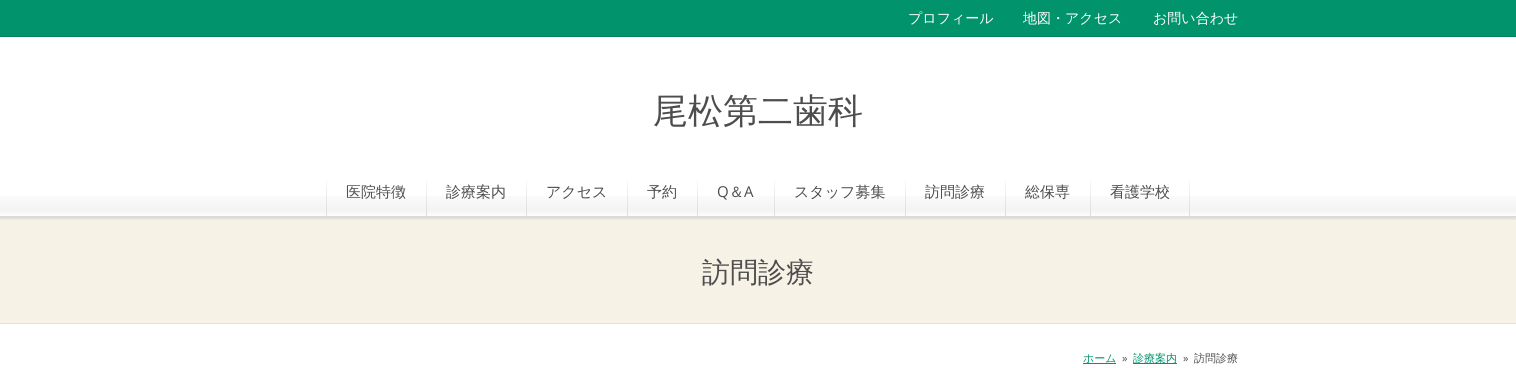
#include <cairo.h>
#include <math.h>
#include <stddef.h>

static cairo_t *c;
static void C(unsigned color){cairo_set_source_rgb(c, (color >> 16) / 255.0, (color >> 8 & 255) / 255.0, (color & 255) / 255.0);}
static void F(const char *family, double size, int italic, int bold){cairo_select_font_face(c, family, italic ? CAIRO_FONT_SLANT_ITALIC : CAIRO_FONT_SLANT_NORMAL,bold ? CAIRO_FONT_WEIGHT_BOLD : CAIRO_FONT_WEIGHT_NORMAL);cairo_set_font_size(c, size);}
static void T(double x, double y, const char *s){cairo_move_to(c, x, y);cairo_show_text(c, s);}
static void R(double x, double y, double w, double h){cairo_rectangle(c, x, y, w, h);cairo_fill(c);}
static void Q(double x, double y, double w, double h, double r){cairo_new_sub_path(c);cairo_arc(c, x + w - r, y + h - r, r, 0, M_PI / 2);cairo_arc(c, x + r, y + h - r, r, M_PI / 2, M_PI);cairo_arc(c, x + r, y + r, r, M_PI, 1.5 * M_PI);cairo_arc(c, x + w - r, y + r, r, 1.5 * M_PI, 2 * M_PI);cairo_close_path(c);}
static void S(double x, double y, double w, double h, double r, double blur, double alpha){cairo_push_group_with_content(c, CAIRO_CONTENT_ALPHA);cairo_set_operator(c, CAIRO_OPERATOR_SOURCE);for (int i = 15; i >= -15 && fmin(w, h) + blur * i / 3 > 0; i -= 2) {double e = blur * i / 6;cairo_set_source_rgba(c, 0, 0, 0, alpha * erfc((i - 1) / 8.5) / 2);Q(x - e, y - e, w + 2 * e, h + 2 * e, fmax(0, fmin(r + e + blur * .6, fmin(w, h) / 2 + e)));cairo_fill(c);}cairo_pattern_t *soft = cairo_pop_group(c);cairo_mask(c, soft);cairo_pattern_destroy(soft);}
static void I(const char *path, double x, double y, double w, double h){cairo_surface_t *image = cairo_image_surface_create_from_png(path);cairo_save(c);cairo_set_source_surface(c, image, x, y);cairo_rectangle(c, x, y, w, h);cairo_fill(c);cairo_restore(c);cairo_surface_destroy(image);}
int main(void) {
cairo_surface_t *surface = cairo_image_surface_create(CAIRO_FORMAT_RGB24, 1516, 368);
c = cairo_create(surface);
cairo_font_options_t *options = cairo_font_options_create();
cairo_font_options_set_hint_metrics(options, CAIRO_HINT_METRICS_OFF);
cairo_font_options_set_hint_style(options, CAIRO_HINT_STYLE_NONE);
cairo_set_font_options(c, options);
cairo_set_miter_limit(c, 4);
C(0xffffff);
cairo_paint(c);
C(0x00936c);
R(0,0,1516,36);
C(0x00815b);
R(0,36,1516,1);
F("WenQuanYi Zen Hei Medium",14,0,0);
C(0xffffff);
T(908,23,"プロフィール");
T(1023,23,"地図・アクセス");
T(1153,23,"お問い合わせ");
F("WenQuanYi Zen Hei Medium",35,0,0);
C(0x4d4d4d);
T(653,123,"尾松第二歯科");
C(0xf7f2e6);
R(0,217,1516,106);
cairo_save(c);
cairo_rectangle(c,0,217,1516,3);
cairo_clip(c);
C(0x000000);
S(0,169,1516,50,0,1,.1);
cairo_restore(c);
I("1.png",0,196,1516,21);
I("2.png",326,179,1,38);
F("WenQuanYi Zen Hei Medium",15,0,0);
C(0x4d4d4d);
T(346,197,"医院特徴");
I("2.png",426,179,1,38);
T(446,197,"診療案内");
I("2.png",526,179,1,38);
T(546,197,"アクセス");
I("2.png",627,179,1,38);
T(647,197,"予約");
I("2.png",697,179,1,38);
F("Open Sans",15,0,0);
T(717,197,"Q");
F("WenQuanYi Zen Hei Medium",15,0,0);
T(729,197,"＆");
F("Open Sans",15,0,0);
T(744,197,"A");
I("2.png",774,179,1,38);
F("WenQuanYi Zen Hei Medium",15,0,0);
T(794,197,"スタッフ募集");
I("2.png",905,179,1,38);
T(925,197,"訪問診療");
I("2.png",1005,179,1,38);
T(1025,197,"総保専");
I("2.png",1189,179,1,38);
I("2.png",1090,179,1,38);
T(1110,197,"看護学校");
C(0xe4e0d5);
R(0,323,1516,1);
F("WenQuanYi Zen Hei Medium",28,0,0);
C(0x4d4d4d);
T(702,282,"訪問診療");
C(0x00936c);
R(1083,363,33,1);
F("WenQuanYi Zen Hei Medium",11,0,0);
T(1083,362,"ホーム");
F("Open Sans",11,0,0);
C(0x4d4d4d);
T(1122,362,"»");
C(0x00936c);
R(1133,363,44,1);
F("WenQuanYi Zen Hei Medium",11,0,0);
T(1133,362,"診療案内");
F("Open Sans",11,0,0);
C(0x4d4d4d);
T(1183,362,"»");
F("WenQuanYi Zen Hei Medium",11,0,0);
T(1194,362,"訪問診療");
cairo_surface_write_to_png(surface, "o.png");
cairo_font_options_destroy(options);
cairo_destroy(c);
cairo_surface_destroy(surface);
return 0;
}
